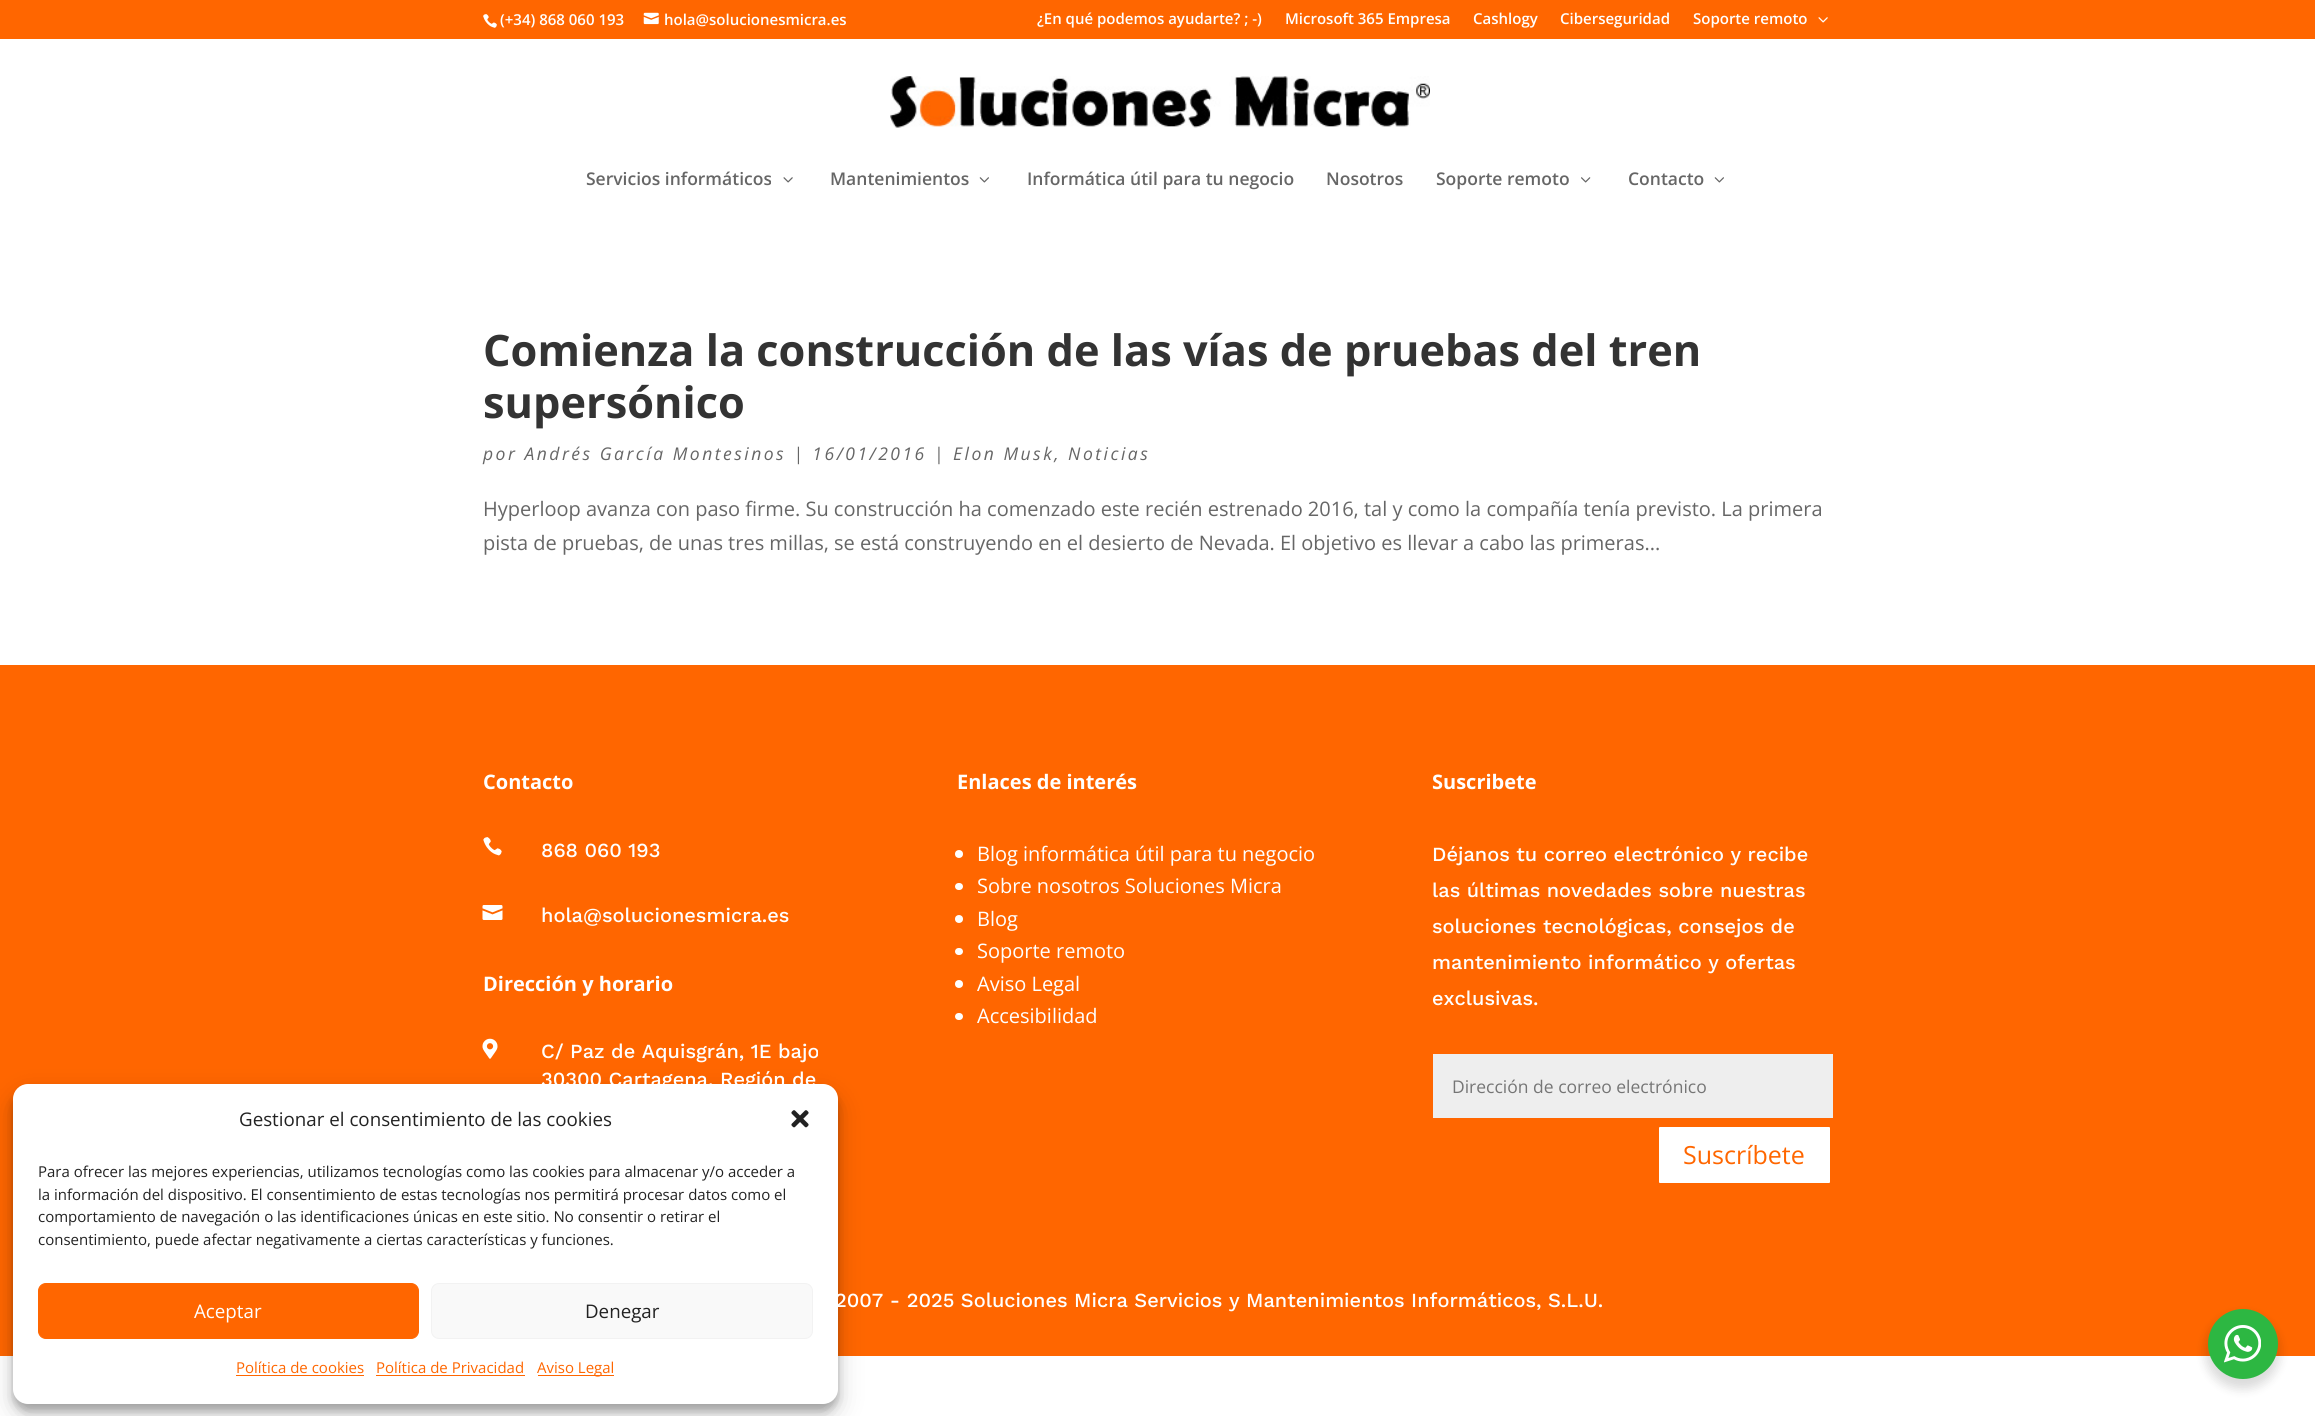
#include <cairo.h>
#include <math.h>
#include <stddef.h>

static cairo_t *c;
static void C(unsigned color){cairo_set_source_rgb(c, (color >> 16) / 255.0, (color >> 8 & 255) / 255.0, (color & 255) / 255.0);}
static void F(const char *family, double size, int italic, int bold){cairo_select_font_face(c, family, italic ? CAIRO_FONT_SLANT_ITALIC : CAIRO_FONT_SLANT_NORMAL,bold ? CAIRO_FONT_WEIGHT_BOLD : CAIRO_FONT_WEIGHT_NORMAL);cairo_set_font_size(c, size);}
static void T(double x, double y, const char *s){cairo_move_to(c, x, y);cairo_show_text(c, s);}
static void L(double x, double y, const char *s, double letter, double word){cairo_move_to(c, x, y);while (*s) {char ch[5] = {0};int n = 0;do ch[n++] = *s++; while ((*s & 0xC0) == 0x80);cairo_show_text(c, ch);cairo_rel_move_to(c, letter + word * (*ch == ' '), 0);}}
static void R(double x, double y, double w, double h){cairo_rectangle(c, x, y, w, h);cairo_fill(c);}
static void Q(double x, double y, double w, double h, double r){cairo_new_sub_path(c);cairo_arc(c, x + w - r, y + h - r, r, 0, M_PI / 2);cairo_arc(c, x + r, y + h - r, r, M_PI / 2, M_PI);cairo_arc(c, x + r, y + r, r, M_PI, 1.5 * M_PI);cairo_arc(c, x + w - r, y + r, r, 1.5 * M_PI, 2 * M_PI);cairo_close_path(c);}
static void S(double x, double y, double w, double h, double r, double blur, double alpha){cairo_push_group_with_content(c, CAIRO_CONTENT_ALPHA);cairo_set_operator(c, CAIRO_OPERATOR_SOURCE);for (int i = 15; i >= -15 && fmin(w, h) + blur * i / 3 > 0; i -= 2) {double e = blur * i / 6;cairo_set_source_rgba(c, 0, 0, 0, alpha * erfc((i - 1) / 8.5) / 2);Q(x - e, y - e, w + 2 * e, h + 2 * e, fmax(0, fmin(r + e + blur * .6, fmin(w, h) / 2 + e)));cairo_fill(c);}cairo_pattern_t *soft = cairo_pop_group(c);cairo_mask(c, soft);cairo_pattern_destroy(soft);}
static void I(const char *path, double x, double y, double w, double h){cairo_surface_t *image = cairo_image_surface_create_from_png(path);cairo_save(c);cairo_set_source_surface(c, image, x, y);cairo_rectangle(c, x, y, w, h);cairo_fill(c);cairo_restore(c);cairo_surface_destroy(image);}
int main(void) {
cairo_surface_t *surface = cairo_image_surface_create(CAIRO_FORMAT_RGB24, 2315, 1416);
c = cairo_create(surface);
cairo_font_options_t *options = cairo_font_options_create();
cairo_font_options_set_hint_metrics(options, CAIRO_HINT_METRICS_OFF);
cairo_font_options_set_hint_style(options, CAIRO_HINT_STYLE_NONE);
cairo_set_font_options(c, options);
cairo_set_miter_limit(c, 4);
C(0xffffff);
cairo_paint(c);
C(0xff6600);
R(0,665,2315,691);
C(0x000000);
S(13,1091,825,320,15,4,.23);
I("11.png",482,1038,16,21);
S(13,1096,825,320,15,12.5,.19);
C(0xffffff);
Q(13,1084,825,320,15);
cairo_fill(c);
F("Open Sans",18.75,0,0);
C(0x222222);
T(239,1126,"Gestionar el consentimiento de las cookies");
I("1.png",791,1110,18,18);
F("Open Sans",15,0,0);
T(38,1177,"Para ofrecer las mejores experiencias, utilizamos tecnologías como las cookies para almacenar y/o acceder a");
T(38,1200,"la información del dispositivo. El consentimiento de estas tecnologías nos permitirá procesar datos como el");
T(38,1222,"comportamiento de navegación o las identificaciones únicas en este sitio. No consentir o retirar el");
T(38,1245,"consentimiento, puede afectar negativamente a ciertas características y funciones.");
C(0xff6600);
Q(38.5,1283.5,380,55,7.5);
cairo_fill_preserve(c);
cairo_set_line_width(c,1);
cairo_stroke(c);
F("Open Sans",18.75,0,0);
C(0xffffff);
T(194,1318,"Aceptar");
C(0xf9f9f9);
Q(431.5,1283.5,381,55,7.5);
cairo_fill_preserve(c);
C(0xf2f2f2);
cairo_stroke(c);
C(0x222222);
T(585,1318,"Denegar");
F("Open Sans",15,0,0);
C(0xff6600);
T(236,1373,"Política de cookies");
R(236,1375,128,1);
T(376,1373,"Política de Privacidad");
R(376,1375,149,1);
R(538,1375,76,1);
T(537,1373,"Aviso Legal");
R(0,0,2315,39);
I("2.png",483,14,14,14);
F("Open Sans SemiBold",15,0,0);
C(0xffffff);
T(500,25,"(+34) 868 060 193");
I("3.png",643,12,16,13);
T(664,25,"hola@solucionesmicra.es");
T(1037,24,"¿En qué podemos ayudarte? ; -)");
T(1285,24,"Microsoft 365 Empresa");
T(1473,24,"Cashlogy");
T(1560,24,"Ciberseguridad");
T(1693,24,"Soporte remoto");
I("4.png",1818,17,10,6);
I("5.png",890,76,540,52);
F("Open Sans SemiBold",17.5,0,0);
C(0x666666);
T(586,185,"Servicios informáticos");
I("6.png",783,177,10,6);
T(830,185,"Mantenimientos");
I("7.png",979,177,10,6);
T(1027,185,"Informática útil para tu negocio");
T(1326,185,"Nosotros");
T(1436,185,"Soporte remoto");
I("8.png",1581,177,10,6);
T(1628,185,"Contacto");
I("7.png",1714,177,10,6);
F("Open Sans",43.3,0,1);
C(0x333333);
T(483,366,"Comienza la construcción de las vías de pruebas del tren");
T(483,418,"supersónico");
F("Open Sans",17.5,1,0);
C(0x666666);
L(483,460,"por Andrés García Montesinos | 16/01/2016 | Elon Musk, Noticias",2.5,0);
F("Open Sans",20,0,0);
T(483,516,"Hyperloop avanza con paso firme. Su construcción ha comenzado este recién estrenado 2016, tal y como la compañía tenía previsto. La primera");
T(483,550,"pista de pruebas, de unas tres millas, se está construyendo en el desierto de Nevada. El objetivo es llevar a cabo las primeras...");
F("Open Sans",20,0,1);
C(0xffffff);
T(483,789,"Contacto");
I("9.png",483,837,19,19);
F("Work Sans Medium",20,0,0);
T(541,857,"868 060 193");
I("10.png",482,905,21,15);
T(541,922,"hola@solucionesmicra.es");
F("Open Sans",20,0,1);
T(483,991,"Dirección y horario");
F("Work Sans Medium",20,0,0);
T(541,1058,"C/ Paz de Aquisgrán, 1E bajo");
T(541,1086,"30300 Cartagena. Región de");
F("Open Sans",20,0,1);
T(957,789,"Enlaces de interés");
cairo_new_path(c);
cairo_arc(c,959,854,4,0,2 * M_PI);
cairo_fill(c);
F("Open Sans",20,0,0);
T(977,861,"Blog informática útil para tu negocio");
Q(955,883,8,7,3.5);
cairo_fill(c);
T(977,893,"Sobre nosotros Soluciones Micra");
cairo_new_path(c);
cairo_arc(c,959,919,4,0,2 * M_PI);
cairo_fill(c);
T(977,926,"Blog");
Q(955,948,8,7,3.5);
cairo_fill(c);
T(977,958,"Soporte remoto");
cairo_new_path(c);
cairo_arc(c,959,984,4,0,2 * M_PI);
cairo_fill(c);
T(977,991,"Aviso Legal");
Q(955,1013,8,7,3.5);
cairo_fill(c);
T(977,1023,"Accesibilidad");
F("Open Sans",20,0,1);
T(1432,789,"Suscribete");
F("Work Sans Medium",20,0,0);
T(1432,861,"Déjanos tu correo electrónico y recibe");
T(1432,897,"las últimas novedades sobre nuestras");
T(1432,933,"soluciones tecnológicas, consejos de");
T(1432,969,"mantenimiento informático y ofertas");
T(1432,1005,"exclusivas.");
C(0xeeeeee);
R(1433,1054,400,64);
F("Open Sans",17.5,0,0);
C(0x757575);
T(1452,1093,"Dirección de correo electrónico");
C(0xffffff);
Q(1657.5,1125.5,174,59,2.5);
cairo_fill_preserve(c);
C(0xff6600);
cairo_set_line_width(c,3);
cairo_stroke(c);
F("Open Sans",25,0,0);
T(1683,1164,"Suscríbete");
F("Work Sans Medium",20,0,0);
C(0xffffff);
T(835,1307,"2007 - 2025 Soluciones Micra Servicios y Mantenimientos Informáticos, S.L.U.");
C(0x000000);
S(2205,1314,75,75,37.5,5,.14);
C(0x2db742);
cairo_arc(c,2243,1344,35,0,2 * M_PI);
cairo_fill(c);
I("12.png",2224,1325,37,38);
cairo_surface_write_to_png(surface, "o.png");
cairo_font_options_destroy(options);
cairo_destroy(c);
cairo_surface_destroy(surface);
return 0;
}
